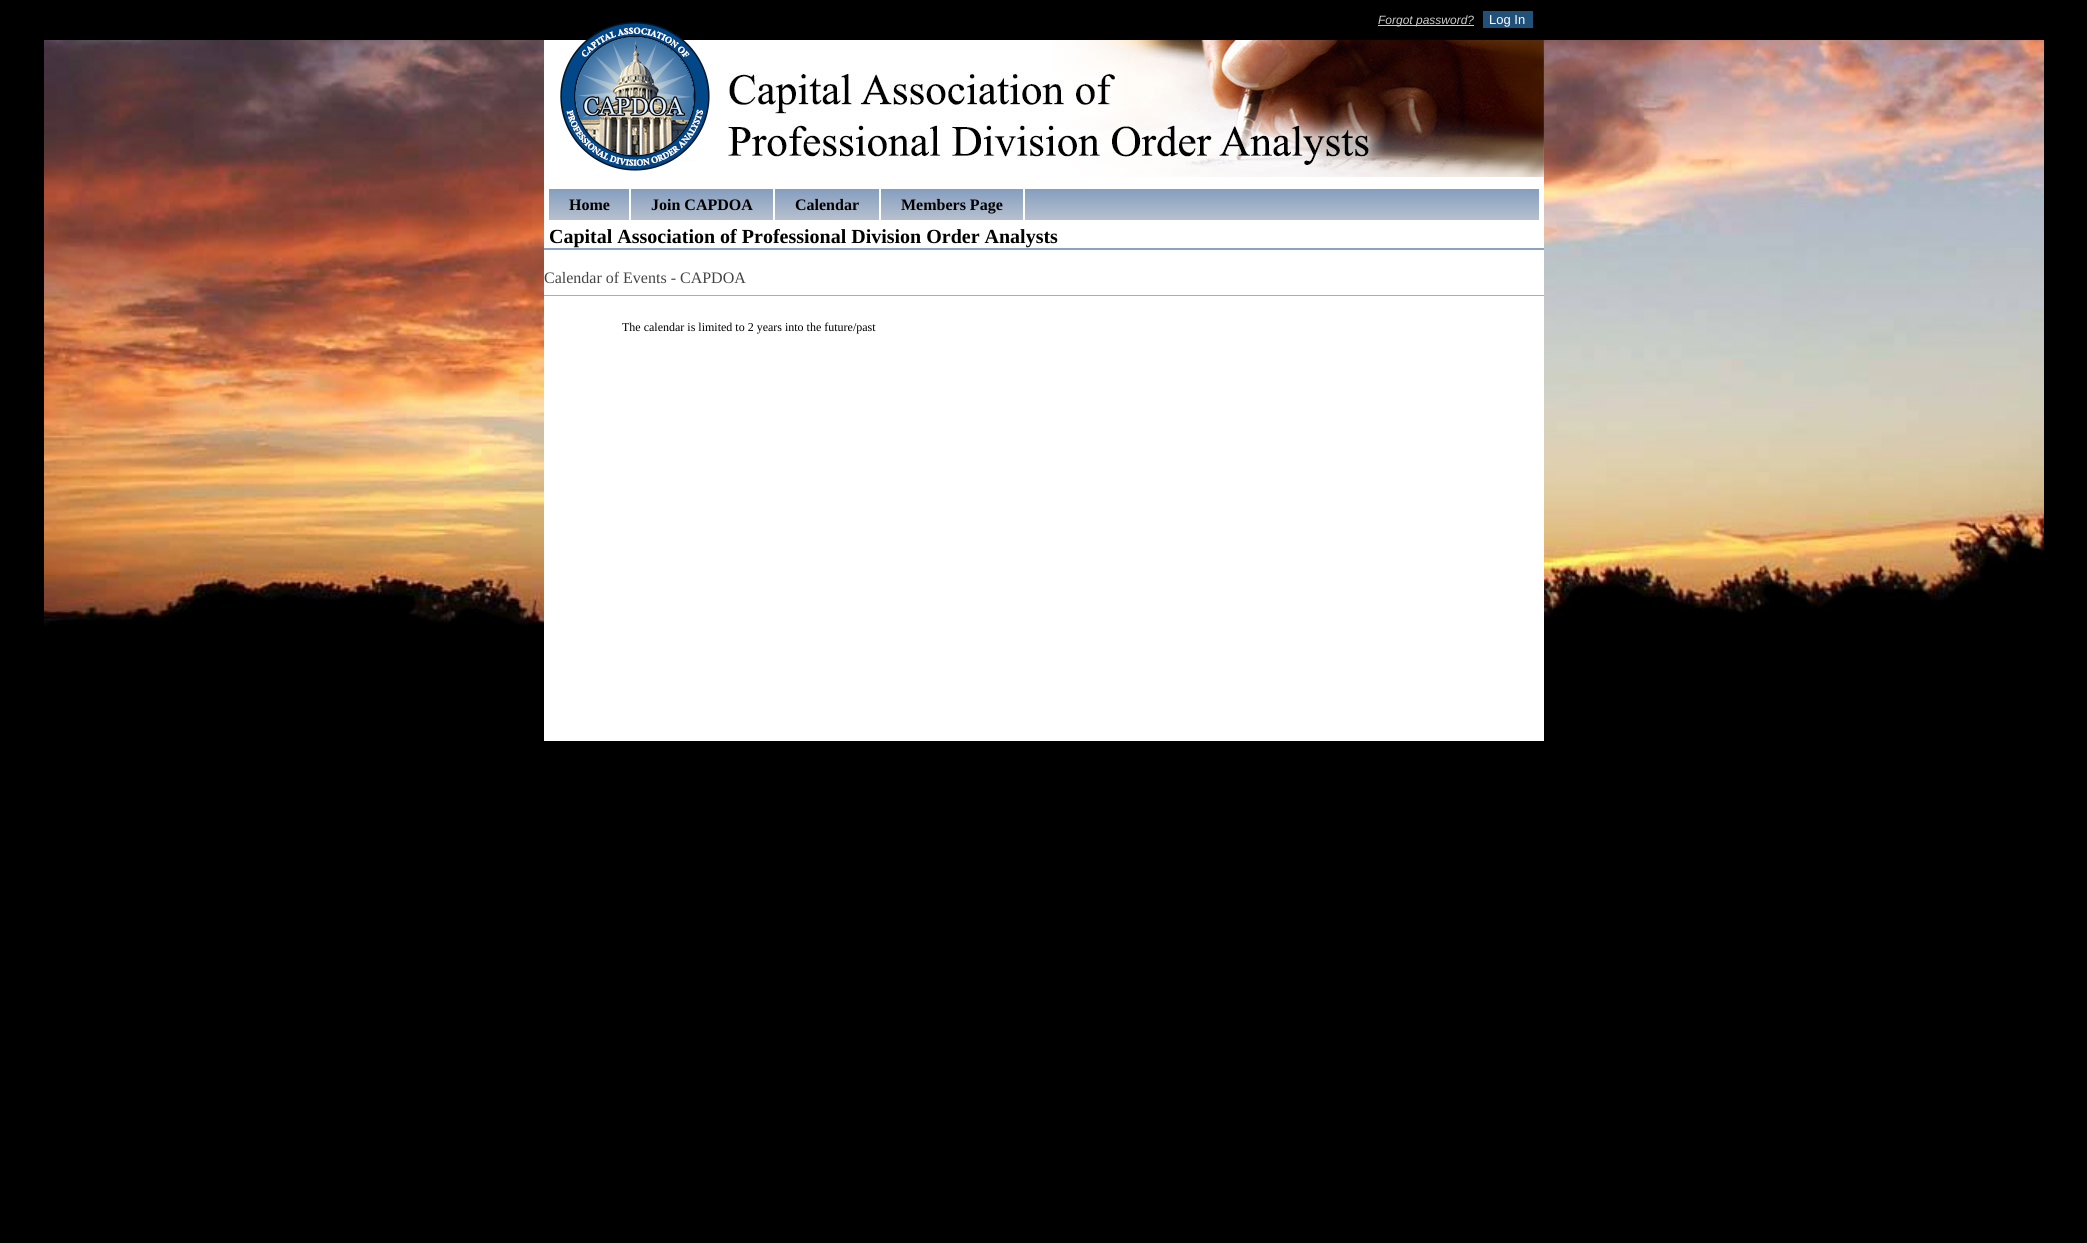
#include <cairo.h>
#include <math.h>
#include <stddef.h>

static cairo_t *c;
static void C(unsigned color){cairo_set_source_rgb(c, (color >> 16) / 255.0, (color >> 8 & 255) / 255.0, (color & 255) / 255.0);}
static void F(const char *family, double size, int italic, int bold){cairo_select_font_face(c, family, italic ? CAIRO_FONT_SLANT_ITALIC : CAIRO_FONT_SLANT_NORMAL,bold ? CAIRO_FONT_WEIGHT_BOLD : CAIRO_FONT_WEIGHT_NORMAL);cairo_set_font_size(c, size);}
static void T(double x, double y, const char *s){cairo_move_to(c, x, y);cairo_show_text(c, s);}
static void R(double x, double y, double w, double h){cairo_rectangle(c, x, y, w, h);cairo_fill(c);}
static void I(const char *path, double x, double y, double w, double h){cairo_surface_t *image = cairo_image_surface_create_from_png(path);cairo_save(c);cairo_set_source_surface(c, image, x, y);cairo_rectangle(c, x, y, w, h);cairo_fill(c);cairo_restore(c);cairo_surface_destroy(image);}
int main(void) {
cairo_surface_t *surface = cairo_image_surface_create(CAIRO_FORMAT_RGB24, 2087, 1243);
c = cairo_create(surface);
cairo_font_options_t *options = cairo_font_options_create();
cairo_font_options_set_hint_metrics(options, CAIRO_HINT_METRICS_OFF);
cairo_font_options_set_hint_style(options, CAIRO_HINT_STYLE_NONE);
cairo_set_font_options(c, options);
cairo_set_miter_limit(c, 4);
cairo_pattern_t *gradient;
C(0x000000);
cairo_paint(c);
I("1.png",44,40,2000,586);
C(0xcccccc);
R(1378,25,96,1);
F("Liberation Sans",12,1,0);
T(1378,24,"Forgot password?");
C(0x215179);
R(1483,11,50,17);
F("Liberation Sans",13,0,0);
C(0xffffff);
T(1489,24,"Log In");
R(544,40,1000,701);
I("2.png",728,40,816,137);
I("3.png",560,22,150,149);
gradient = cairo_pattern_create_linear(1044,189,1044,220);
cairo_pattern_add_color_stop_rgba(gradient,0,0.518,0.62,0.749,1);
cairo_pattern_add_color_stop_rgba(gradient,1,0.718,0.753,0.808,1);
cairo_set_source(c,gradient);
cairo_pattern_destroy(gradient);
R(549,189,990,31);
C(0xffffff);
R(629,189,2,31);
F("Liberation Serif",16,0,1);
C(0x000000);
T(569,210,"Home");
C(0xffffff);
R(773,189,2,31);
C(0x000000);
T(651,210,"Join CAPDOA");
C(0xffffff);
R(879,189,2,31);
C(0x000000);
T(795,210,"Calendar");
C(0xffffff);
R(1023,189,2,31);
C(0x000000);
T(901,210,"Members Page");
C(0x8aa3c1);
R(544,248,1000,2);
F("Liberation Serif",20,0,1);
C(0x000000);
T(549,243,"Capital Association of Professional Division Order Analysts");
C(0x9dafc6);
R(544,295,1000,1);
F("Liberation Serif",16,0,0);
C(0x444444);
T(544,283,"Calendar of Events - CAPDOA");
F("Liberation Serif",12,0,0);
C(0x000000);
T(622,331,"The calendar is limited to 2 years into the future/past");
cairo_surface_write_to_png(surface, "o.png");
cairo_font_options_destroy(options);
cairo_destroy(c);
cairo_surface_destroy(surface);
return 0;
}
